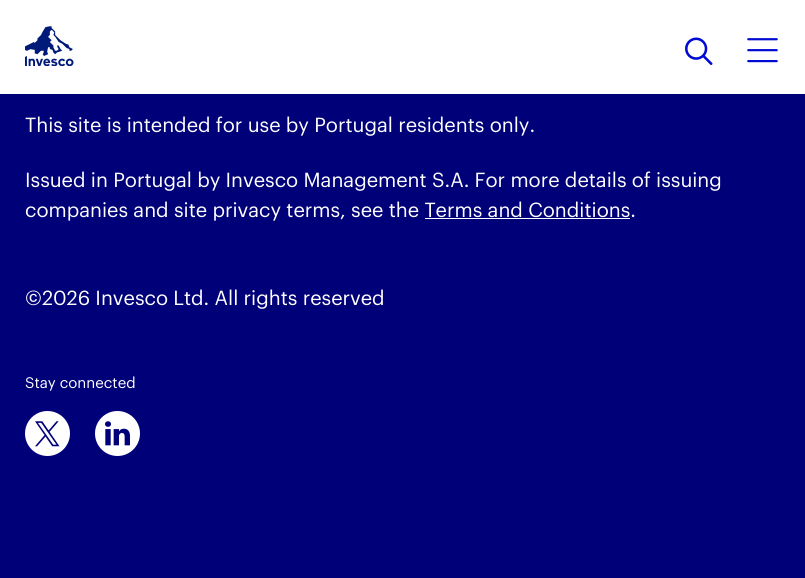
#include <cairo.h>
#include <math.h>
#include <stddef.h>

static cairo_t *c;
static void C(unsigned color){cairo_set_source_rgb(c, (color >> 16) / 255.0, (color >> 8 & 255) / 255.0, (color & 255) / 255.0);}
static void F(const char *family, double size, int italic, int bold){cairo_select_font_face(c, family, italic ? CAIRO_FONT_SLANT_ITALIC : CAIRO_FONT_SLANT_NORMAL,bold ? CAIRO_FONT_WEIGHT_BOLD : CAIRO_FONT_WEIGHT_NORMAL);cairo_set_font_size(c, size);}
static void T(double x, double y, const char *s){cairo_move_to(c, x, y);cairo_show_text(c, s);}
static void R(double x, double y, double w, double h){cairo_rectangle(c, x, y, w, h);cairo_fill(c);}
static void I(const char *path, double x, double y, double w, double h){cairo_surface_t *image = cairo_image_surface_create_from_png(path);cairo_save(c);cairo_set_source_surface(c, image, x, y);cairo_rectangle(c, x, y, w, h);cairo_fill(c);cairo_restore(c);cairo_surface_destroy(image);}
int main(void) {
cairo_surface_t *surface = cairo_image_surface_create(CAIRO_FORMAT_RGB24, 805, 578);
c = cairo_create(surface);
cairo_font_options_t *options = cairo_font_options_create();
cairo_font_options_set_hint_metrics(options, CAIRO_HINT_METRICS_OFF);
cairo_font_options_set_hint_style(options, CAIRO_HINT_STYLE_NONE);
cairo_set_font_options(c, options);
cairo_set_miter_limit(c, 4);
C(0x000078);
cairo_paint(c);
C(0xffffff);
R(0,0,805,94);
I("1.png",25,26,49,40);
I("2.png",685,37,28,28);
I("3.png",747,38,31,25);
F("Graphik",20,0,0);
T(25,132,"This site is intended for use by Portugal residents only.");
T(25,187,"Issued in Portugal by Invesco Management S.A. For more details of issuing");
T(25,217,"companies and site privacy terms, see the Terms and Conditions.");
R(425,218,205,1);
T(25,305,"©2026 Invesco Ltd. All rights reserved");
F("Graphik",15,0,0);
T(25,388,"Stay connected");
cairo_new_path(c);
cairo_arc(c,47.5,433.5,22.5,0,2 * M_PI);
cairo_fill(c);
I("4.png",35,421,25,26);
cairo_arc(c,117.5,433.5,22.5,0,2 * M_PI);
cairo_fill(c);
I("5.png",105,421,25,25);
cairo_surface_write_to_png(surface, "o.png");
cairo_font_options_destroy(options);
cairo_destroy(c);
cairo_surface_destroy(surface);
return 0;
}
